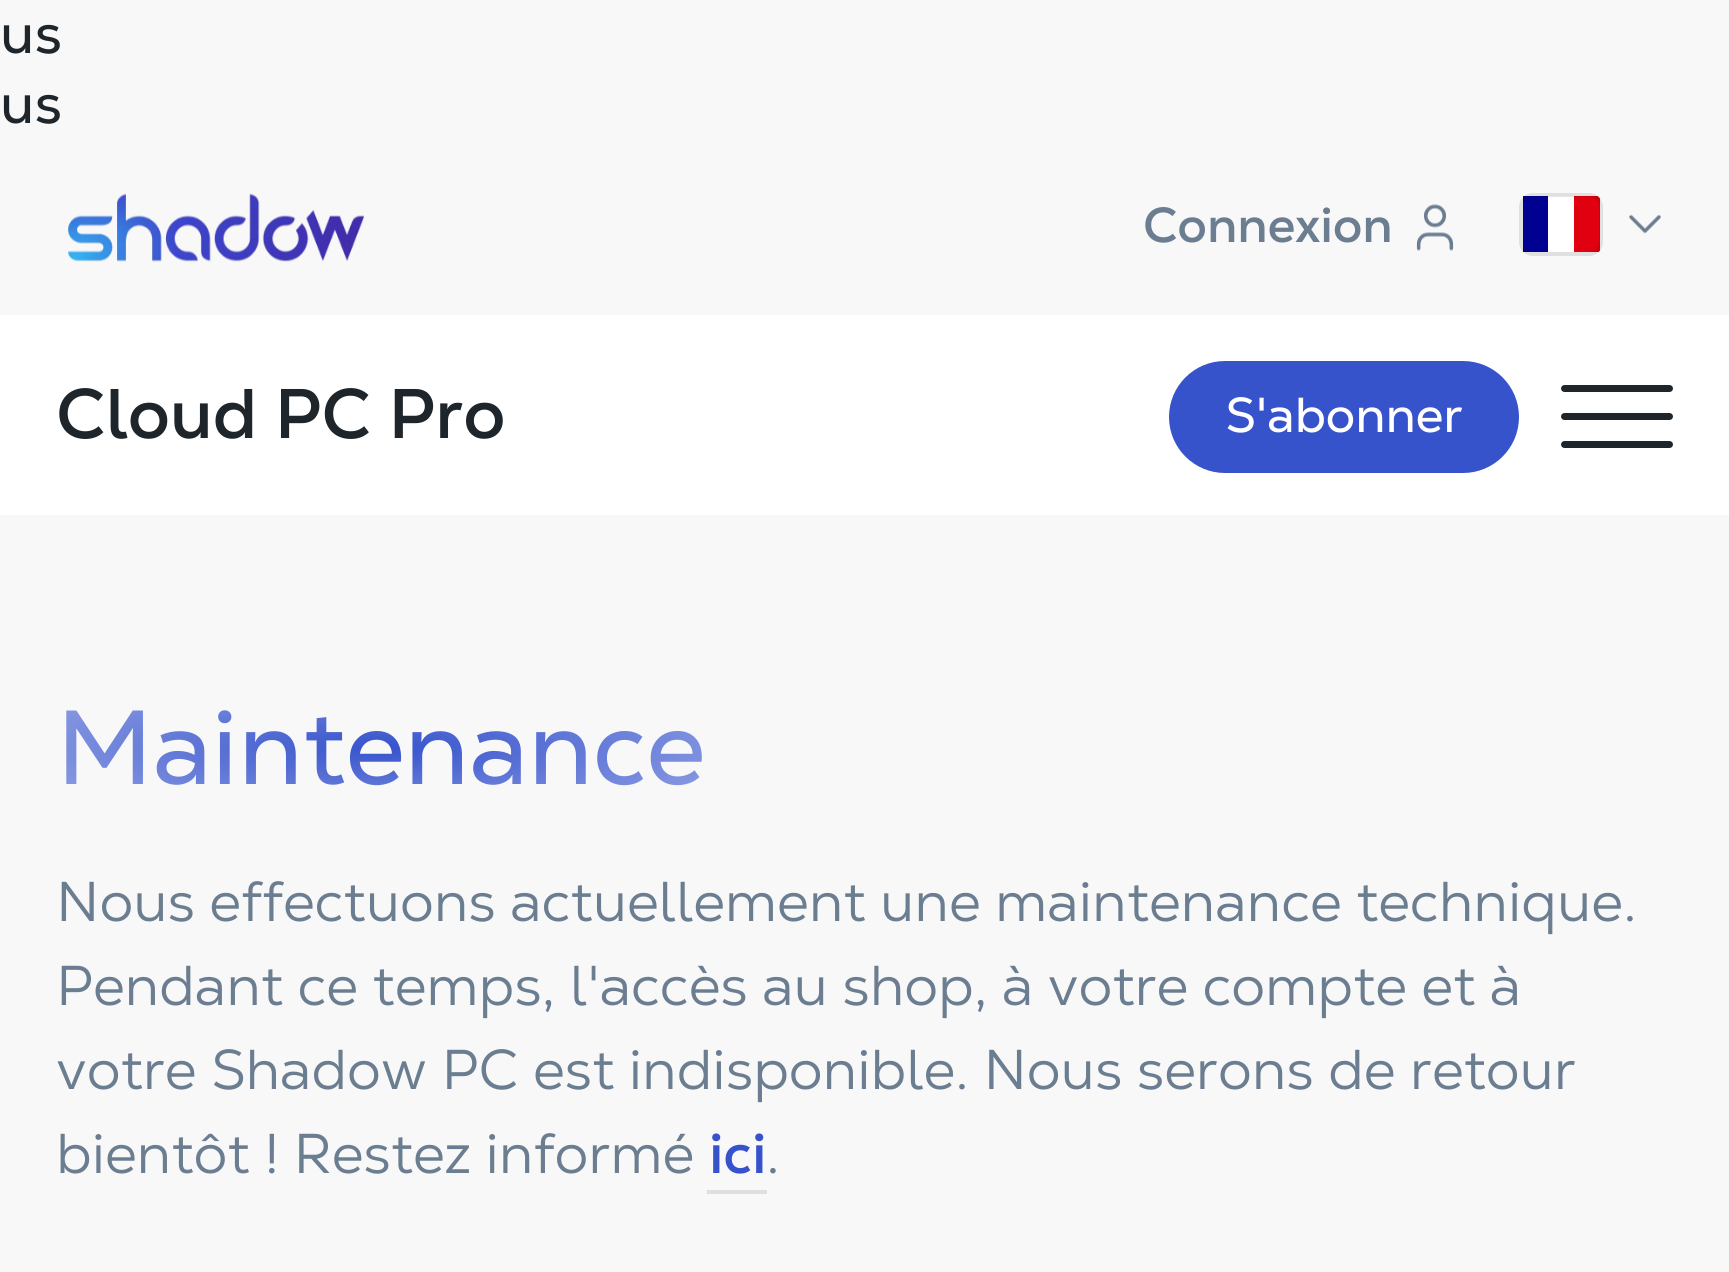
#include <cairo.h>
#include <math.h>
#include <stddef.h>

static cairo_t *c;
static void C(unsigned color){cairo_set_source_rgb(c, (color >> 16) / 255.0, (color >> 8 & 255) / 255.0, (color & 255) / 255.0);}
static void F(const char *family, double size, int italic, int bold){cairo_select_font_face(c, family, italic ? CAIRO_FONT_SLANT_ITALIC : CAIRO_FONT_SLANT_NORMAL,bold ? CAIRO_FONT_WEIGHT_BOLD : CAIRO_FONT_WEIGHT_NORMAL);cairo_set_font_size(c, size);}
static void T(double x, double y, const char *s){cairo_move_to(c, x, y);cairo_show_text(c, s);}
static void R(double x, double y, double w, double h){cairo_rectangle(c, x, y, w, h);cairo_fill(c);}
static void Q(double x, double y, double w, double h, double r){cairo_new_sub_path(c);cairo_arc(c, x + w - r, y + h - r, r, 0, M_PI / 2);cairo_arc(c, x + r, y + h - r, r, M_PI / 2, M_PI);cairo_arc(c, x + r, y + r, r, M_PI, 1.5 * M_PI);cairo_arc(c, x + w - r, y + r, r, 1.5 * M_PI, 2 * M_PI);cairo_close_path(c);}
static void I(const char *path, double x, double y, double w, double h){cairo_surface_t *image = cairo_image_surface_create_from_png(path);cairo_save(c);cairo_set_source_surface(c, image, x, y);cairo_rectangle(c, x, y, w, h);cairo_fill(c);cairo_restore(c);cairo_surface_destroy(image);}
int main(void) {
cairo_surface_t *surface = cairo_image_surface_create(CAIRO_FORMAT_RGB24, 1729, 1272);
c = cairo_create(surface);
cairo_font_options_t *options = cairo_font_options_create();
cairo_font_options_set_hint_metrics(options, CAIRO_HINT_METRICS_OFF);
cairo_font_options_set_hint_style(options, CAIRO_HINT_STYLE_NONE);
cairo_set_font_options(c, options);
cairo_set_miter_limit(c, 4);
cairo_pattern_t *gradient;
C(0xf8f8f8);
cairo_paint(c);
F("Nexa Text",56,0,0);
C(0x1e252b);
T(0,53,"us");
T(0,123,"us");
I("1.png",68,193,296,69);
F("Nexa Text",49,0,1);
C(0x6b7d90);
T(1143,242,"Connexion");
I("2.png",1416,204,38,47);
cairo_save(c);
Q(1519,193,84,63,14);
cairo_clip(c);
C(0xffffff);
R(1523,196,77,56);
cairo_restore(c);
C(0x000091);
R(1523,196,25,56);
cairo_save(c);
Q(1519,193,84,63,14);
cairo_clip(c);
C(0xe1000f);
R(1574,196,26,56);
cairo_restore(c);
Q(1521,195,80,59,12);
cairo_set_source_rgba(c,0,0,0,0.1);
cairo_set_line_width(c,4);
cairo_stroke(c);
I("3.png",1629,214,32,20);
C(0xffffff);
R(0,315,1729,200);
F("Nexa Text",70,0,1);
C(0x1e252b);
T(56,438,"Cloud PC Pro");
C(0x3653cc);
Q(1169,361,350,112,56);
cairo_fill(c);
F("Nexa Text",49,0,0);
C(0xffffff);
T(1225,432,"S'abonner");
C(0x1e252b);
Q(1561,385,112,7,3.5);
cairo_fill(c);
Q(1561,413,112,7,3.5);
cairo_fill(c);
Q(1561,441,112,7,3.5);
cairo_fill(c);
F("Nexa Text",105,0,0);
gradient = cairo_pattern_create_radial(0,0,0,0,0,1);
cairo_pattern_set_matrix(gradient, &(cairo_matrix_t){1.0 / 459, 0, 0, 1.0 / 97, -1.0 * 381 / 459, -1.0 * 747 / 97});
cairo_pattern_add_color_stop_rgba(gradient,0,0.212,0.325,0.8,1);
cairo_pattern_add_color_stop_rgba(gradient,1,0.608,0.663,0.902,1);
cairo_set_source(c,gradient);
cairo_pattern_destroy(gradient);
T(56,784,"Maintenance");
F("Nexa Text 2",56,0,0);
C(0x6b7d90);
T(56,921,"Nous effectuons actuellement une maintenance technique.");
T(56,1005,"Pendant ce temps, l'accès au shop, à votre compte et à");
T(56,1089,"votre Shadow PC est indisponible. Nous serons de retour");
T(56,1173,"bientôt ! Restez informé");
F("Nexa Text",56,0,1);
C(0x3653cc);
T(709,1173,"ici");
C(0xdfdfdf);
R(707,1190,60,4);
F("Nexa Text 2",56,0,0);
C(0x6b7d90);
T(766,1173,".");
cairo_surface_write_to_png(surface, "o.png");
cairo_font_options_destroy(options);
cairo_destroy(c);
cairo_surface_destroy(surface);
return 0;
}
